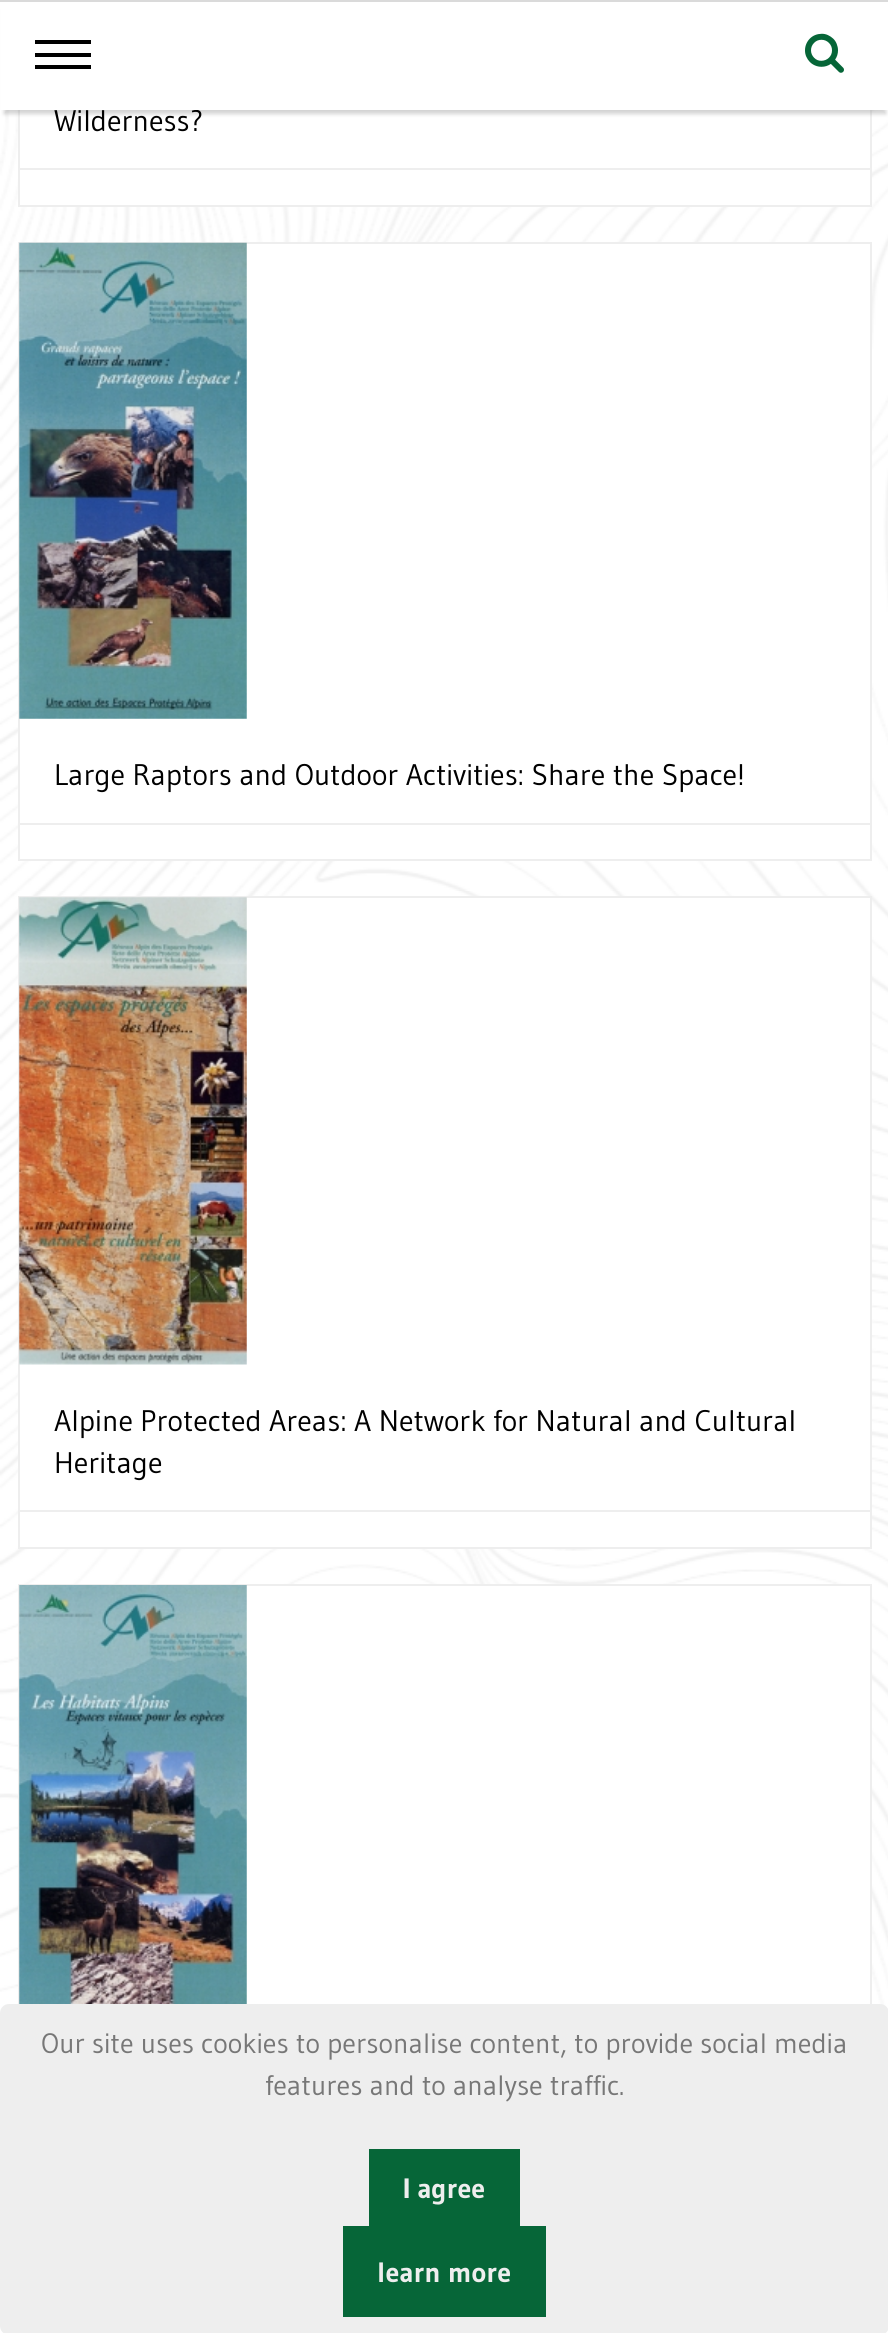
#include <cairo.h>
#include <math.h>
#include <stddef.h>

static cairo_t *c;
static void C(unsigned color){cairo_set_source_rgb(c, (color >> 16) / 255.0, (color >> 8 & 255) / 255.0, (color & 255) / 255.0);}
static void F(const char *family, double size, int italic, int bold){cairo_select_font_face(c, family, italic ? CAIRO_FONT_SLANT_ITALIC : CAIRO_FONT_SLANT_NORMAL,bold ? CAIRO_FONT_WEIGHT_BOLD : CAIRO_FONT_WEIGHT_NORMAL);cairo_set_font_size(c, size);}
static void T(double x, double y, const char *s){cairo_move_to(c, x, y);cairo_show_text(c, s);}
static void R(double x, double y, double w, double h){cairo_rectangle(c, x, y, w, h);cairo_fill(c);}
static void Q(double x, double y, double w, double h, double r){cairo_new_sub_path(c);cairo_arc(c, x + w - r, y + h - r, r, 0, M_PI / 2);cairo_arc(c, x + r, y + h - r, r, M_PI / 2, M_PI);cairo_arc(c, x + r, y + r, r, M_PI, 1.5 * M_PI);cairo_arc(c, x + w - r, y + r, r, 1.5 * M_PI, 2 * M_PI);cairo_close_path(c);}
static void S(double x, double y, double w, double h, double r, double blur, double alpha){cairo_push_group_with_content(c, CAIRO_CONTENT_ALPHA);cairo_set_operator(c, CAIRO_OPERATOR_SOURCE);for (int i = 15; i >= -15 && fmin(w, h) + blur * i / 3 > 0; i -= 2) {double e = blur * i / 6;cairo_set_source_rgba(c, 0, 0, 0, alpha * erfc((i - 1) / 8.5) / 2);Q(x - e, y - e, w + 2 * e, h + 2 * e, fmax(0, fmin(r + e + blur * .6, fmin(w, h) / 2 + e)));cairo_fill(c);}cairo_pattern_t *soft = cairo_pop_group(c);cairo_mask(c, soft);cairo_pattern_destroy(soft);}
static void I(const char *path, double x, double y, double w, double h){cairo_surface_t *image = cairo_image_surface_create_from_png(path);cairo_save(c);cairo_set_source_surface(c, image, x, y);cairo_rectangle(c, x, y, w, h);cairo_fill(c);cairo_restore(c);cairo_surface_destroy(image);}
int main(void) {
cairo_surface_t *surface = cairo_image_surface_create(CAIRO_FORMAT_RGB24, 888, 2333);
c = cairo_create(surface);
cairo_font_options_t *options = cairo_font_options_create();
cairo_font_options_set_hint_metrics(options, CAIRO_HINT_METRICS_OFF);
cairo_font_options_set_hint_style(options, CAIRO_HINT_STYLE_NONE);
cairo_set_font_options(c, options);
cairo_set_miter_limit(c, 4);
C(0xffffff);
cairo_paint(c);
I("1.png",0,110,888,1903);
C(0xffffff);
R(20,110,850,95);
cairo_rectangle(c,19,-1,852,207);
C(0xeeeeee);
cairo_stroke(c);
C(0x6b6b6b);
S(4,11,882,103,0,2,.3);
F("Gudea",29.75,0,0);
C(0x000000);
T(54,131,"Wilderness?");
C(0xffffff);
R(1,2,887,108);
C(0xdadada);
R(0,0,888,2);
C(0x000000);
R(35,53,56,4);
R(35,40,56,4);
R(35,65,56,4);
I("2.png",805,33,39,40);
C(0xeeeeee);
R(19,168,851,2);
C(0xffffff);
cairo_rectangle(c,19,243,852,617);
cairo_fill_preserve(c);
C(0xeeeeee);
cairo_stroke(c);
R(19,823,851,2);
I("3.png",19,242,228,477);
C(0x000000);
T(54,785,"Large Raptors and Outdoor Activities: Share the Space!");
C(0xffffff);
cairo_rectangle(c,19,897,852,651);
cairo_fill_preserve(c);
C(0xeeeeee);
cairo_stroke(c);
R(19,1510,851,2);
I("4.png",19,897,228,468);
C(0x000000);
T(54,1431,"Alpine Protected Areas: A Network for Natural and Cultural");
T(54,1473,"Heritage");
C(0xffffff);
R(246,1586,624,418);
cairo_rectangle(c,19,1585,852,610);
C(0xeeeeee);
cairo_stroke(c);
I("5.png",19,1585,228,419);
Q(0,2004,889,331,9);
cairo_fill(c);
F("Gudea",28,0,0);
C(0x777777);
T(41,2053,"Our site uses cookies to personalise content, to provide social media");
T(265,2095,"features and to analyse traffic.");
C(0x066638);
R(369,2149,151,77);
F("Gudea",28,0,1);
C(0xeeeeee);
T(403,2198,"I agree");
C(0x066638);
R(343,2226,203,91);
C(0xeeeeee);
T(377,2282,"learn more");
cairo_surface_write_to_png(surface, "o.png");
cairo_font_options_destroy(options);
cairo_destroy(c);
cairo_surface_destroy(surface);
return 0;
}
